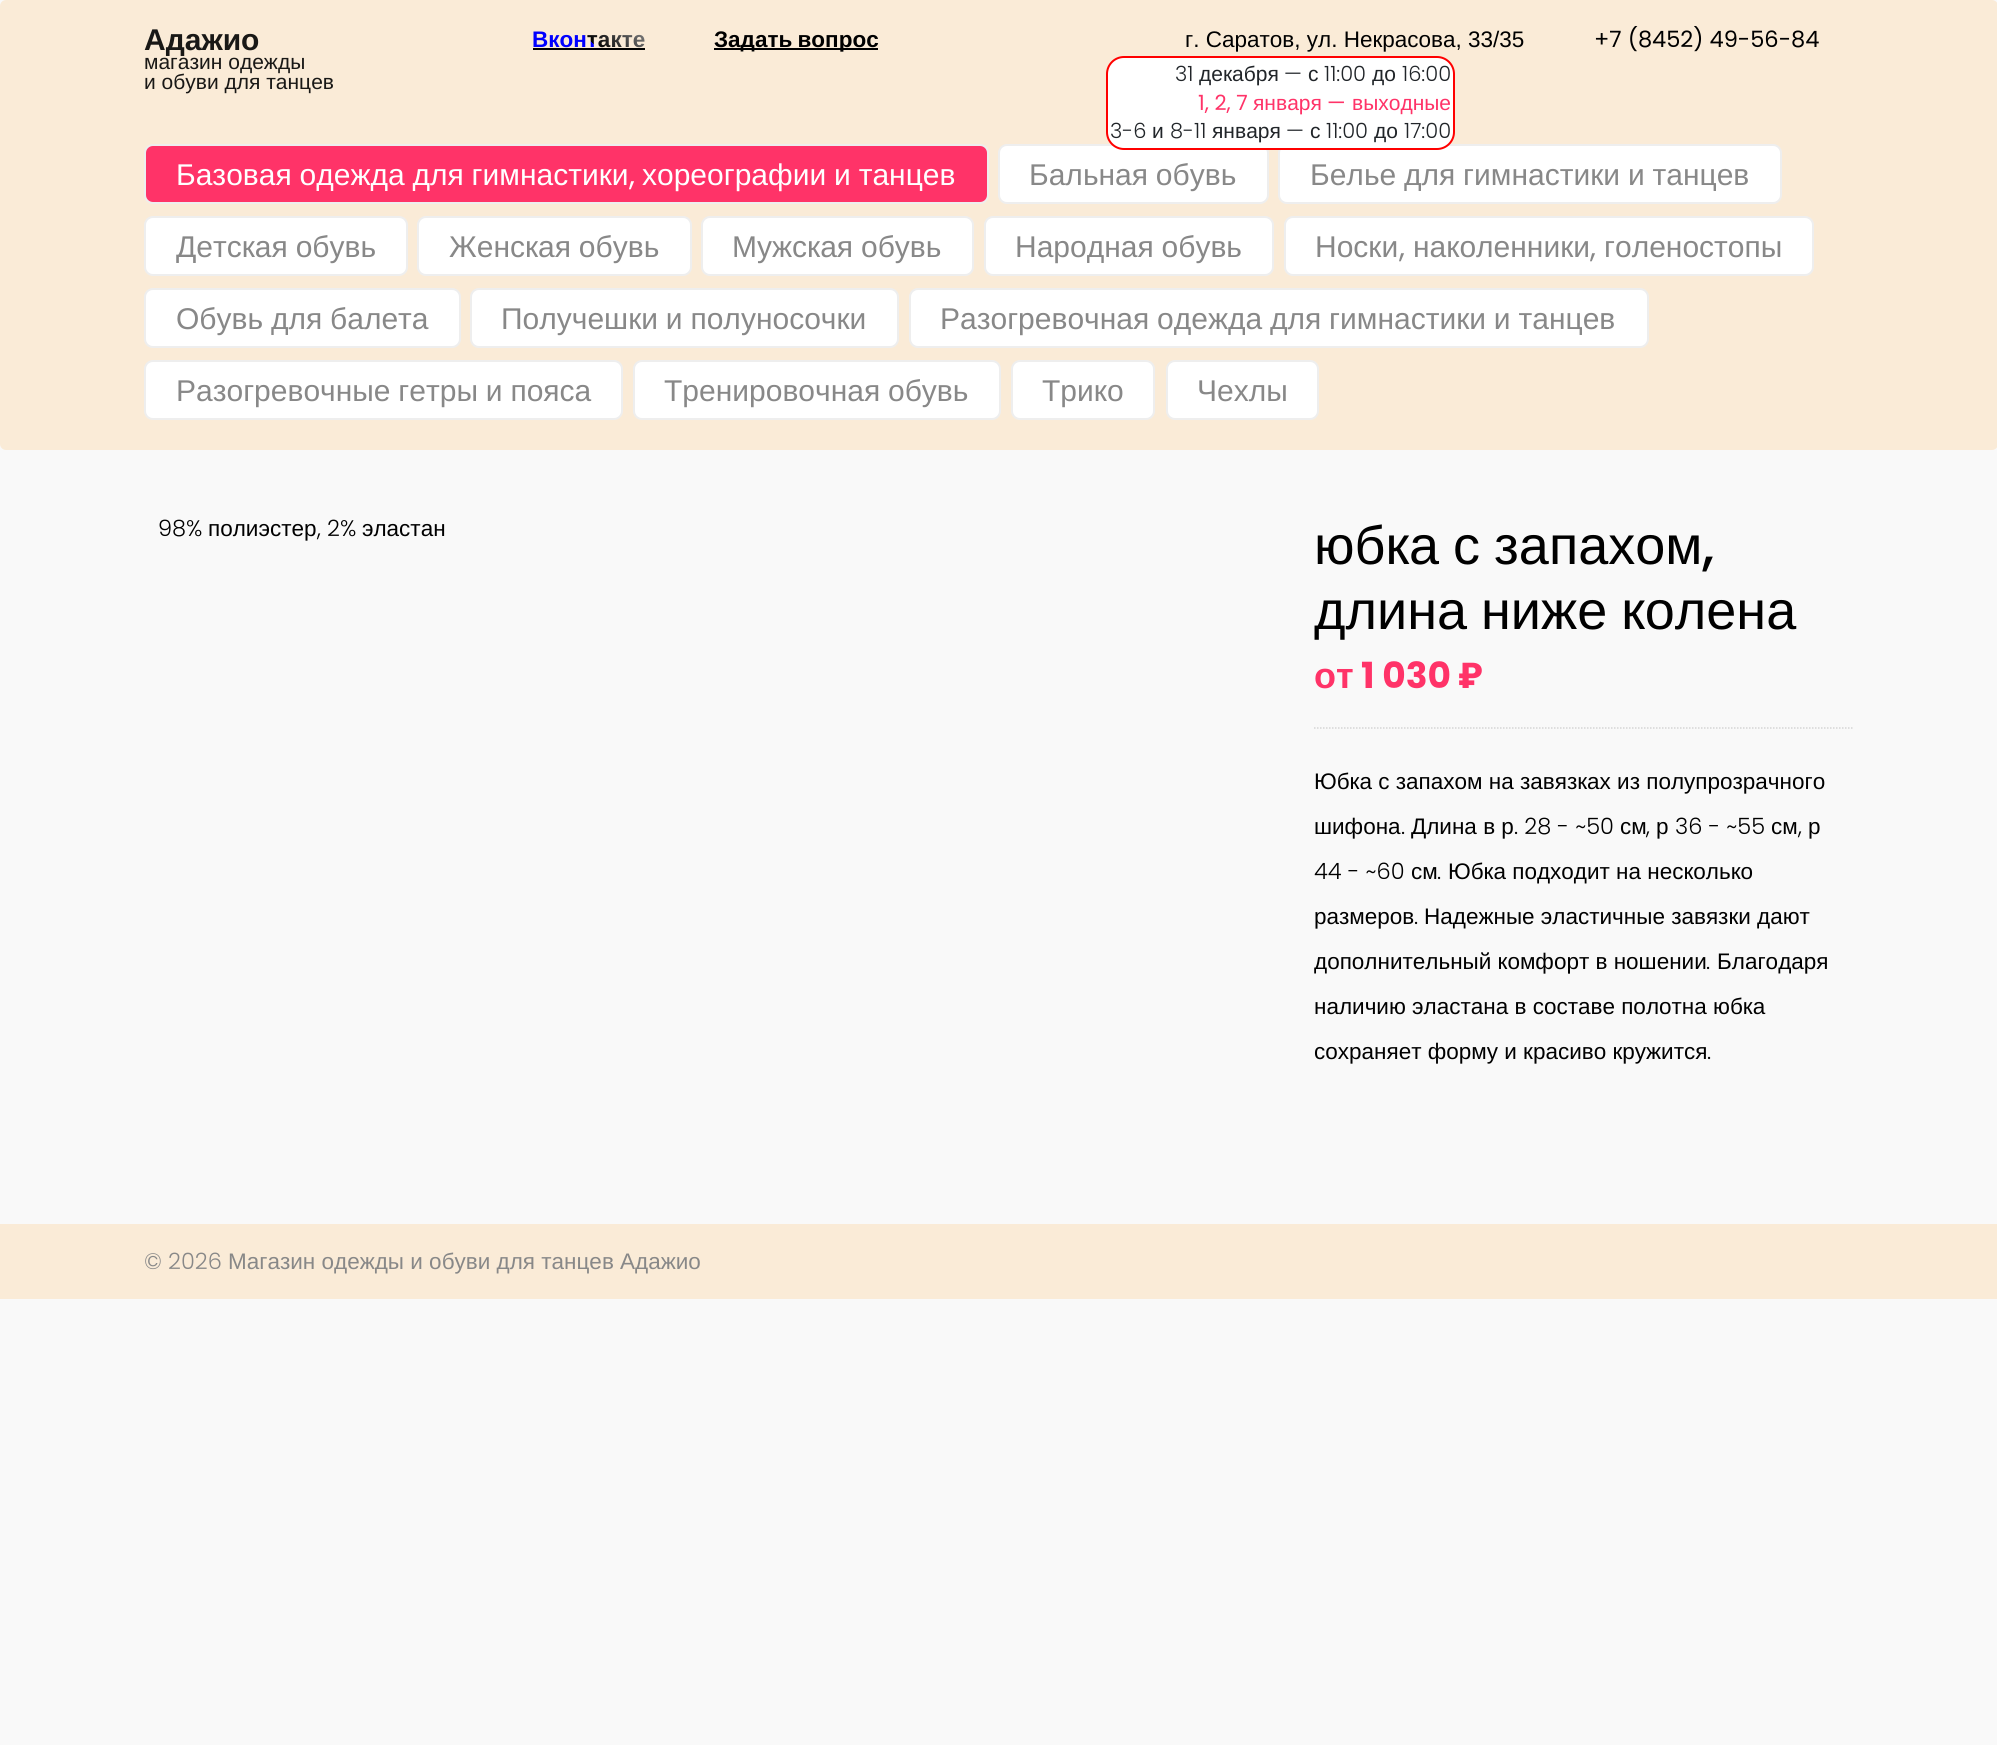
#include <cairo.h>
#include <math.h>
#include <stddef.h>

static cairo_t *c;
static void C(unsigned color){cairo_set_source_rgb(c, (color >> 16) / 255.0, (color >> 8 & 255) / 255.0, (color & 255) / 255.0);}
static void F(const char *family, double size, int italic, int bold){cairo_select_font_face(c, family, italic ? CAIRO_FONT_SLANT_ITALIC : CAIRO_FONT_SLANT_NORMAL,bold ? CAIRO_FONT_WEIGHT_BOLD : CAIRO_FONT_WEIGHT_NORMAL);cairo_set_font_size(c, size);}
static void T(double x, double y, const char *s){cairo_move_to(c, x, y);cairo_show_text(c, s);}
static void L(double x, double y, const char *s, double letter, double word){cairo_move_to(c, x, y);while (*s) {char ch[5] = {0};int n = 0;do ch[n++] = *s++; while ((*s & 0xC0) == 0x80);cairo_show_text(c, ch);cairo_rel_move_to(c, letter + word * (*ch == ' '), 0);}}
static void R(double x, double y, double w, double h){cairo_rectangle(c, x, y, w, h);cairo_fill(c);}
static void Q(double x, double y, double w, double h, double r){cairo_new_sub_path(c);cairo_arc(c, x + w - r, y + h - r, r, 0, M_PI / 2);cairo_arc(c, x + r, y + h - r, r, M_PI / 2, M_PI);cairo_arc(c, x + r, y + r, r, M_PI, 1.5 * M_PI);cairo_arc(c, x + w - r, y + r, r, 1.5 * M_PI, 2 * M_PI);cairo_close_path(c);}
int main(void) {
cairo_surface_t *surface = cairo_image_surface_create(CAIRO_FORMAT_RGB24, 1997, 1745);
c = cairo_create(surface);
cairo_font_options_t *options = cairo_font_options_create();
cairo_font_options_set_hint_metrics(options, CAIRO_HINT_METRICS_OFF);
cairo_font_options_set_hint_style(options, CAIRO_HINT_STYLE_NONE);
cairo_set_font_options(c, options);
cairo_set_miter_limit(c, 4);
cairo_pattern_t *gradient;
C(0xf9f9f9);
cairo_paint(c);
C(0xfaebd7);
Q(0,0,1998,450,6);
cairo_fill(c);
F("Liberation Sans",30,0,1);
C(0x191816);
T(144,50,"Адажио");
F("Liberation Sans",21,0,0);
T(144,69,"магазин одежды");
T(144,89,"и обуви для танцев");
F("Liberation Sans",22.5,0,1);
gradient = cairo_pattern_create_linear(523,104,653,-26);
cairo_pattern_add_color_stop_rgba(gradient,.5,0,0,1,1);
cairo_pattern_add_color_stop_rgba(gradient,.5,0,0,0,1);
cairo_pattern_add_color_stop_rgba(gradient,1,1,1,1,1);
cairo_set_source(c,gradient);
cairo_pattern_destroy(gradient);
T(532,47,"Вконтакте");
C(0x000000);
R(533,48,112,2);
R(714,48,164,2);
L(714,47,"Задать вопрос",0,-1);
F("Liberation Sans",22.5,0,0);
T(1185,47,"г. Саратов, ул. Некрасова, 33/35");
C(0xffffff);
Q(999,145,269,58,8);
cairo_fill_preserve(c);
C(0xeeeeee);
cairo_stroke(c);
C(0xffffff);
Q(1279,145,502,58,8);
cairo_fill_preserve(c);
C(0xeeeeee);
cairo_stroke(c);
C(0xffffff);
Q(1107,57,347,92,17);
cairo_fill_preserve(c);
C(0xff0000);
cairo_stroke(c);
F("Poppins Light",21,0,0);
C(0x212529);
T(1175,81,"31");
F("Liberation Sans",21,0,0);
T(1199,81,"декабря");
F("Poppins Light",21,0,0);
T(1284,81,"—");
F("Liberation Sans",21,0,0);
T(1308,81,"с");
F("Poppins Light",21,0,0);
T(1324,81,"11:00");
F("Liberation Sans",21,0,0);
T(1372,81,"до");
F("Poppins Light",21,0,0);
T(1402,81,"16:00");
F("Poppins",21,0,0);
C(0xff3368);
T(1198,110,"1, 2, 7");
F("Liberation Sans",21,0,0);
T(1253,110,"января");
F("Poppins",21,0,0);
T(1327,110,"—");
F("Liberation Sans",21,0,0);
T(1352,110,"выходные");
F("Poppins Light",21,0,0);
C(0x212529);
T(1110,138,"3-6");
F("Liberation Sans",21,0,0);
T(1152,138,"и");
F("Poppins Light",21,0,0);
T(1170,138,"8-11");
F("Liberation Sans",21,0,0);
T(1212,138,"января");
F("Poppins Light",21,0,0);
T(1286,138,"—");
F("Liberation Sans",21,0,0);
T(1310,138,"с");
F("Poppins Light",21,0,0);
T(1326,138,"11:00");
F("Liberation Sans",21,0,0);
T(1374,138,"до");
F("Poppins Light",21,0,0);
T(1404,138,"17:00");
F("Poppins",22.5,0,0);
C(0x000000);
T(1594,47,"+7 (8452) 49-56-84");
C(0xff3368);
Q(145,145,843,58,8);
cairo_fill_preserve(c);
C(0xeeeeee);
cairo_stroke(c);
F("Liberation Sans",30,0,0);
C(0xffffff);
L(176,185,"Базовая одежда для гимнастики",0,-.5);
F("Poppins",30,0,0);
T(629,185,",");
F("Liberation Sans",30,0,0);
L(642,185,"хореографии и танцев",0,-.5);
C(0x888888);
L(1029,185,"Бальная обувь",0,-.5);
L(1310,185,"Белье для гимнастики и танцев",0,-.5);
C(0xffffff);
Q(145,217,262,58,8);
cairo_fill_preserve(c);
C(0xeeeeee);
cairo_stroke(c);
C(0x888888);
L(176,257,"Детская обувь",0,-.5);
C(0xffffff);
Q(418,217,273,58,8);
cairo_fill_preserve(c);
C(0xeeeeee);
cairo_stroke(c);
C(0x888888);
L(449,257,"Женская обувь",0,-.5);
C(0xffffff);
Q(702,217,271,58,8);
cairo_fill_preserve(c);
C(0xeeeeee);
cairo_stroke(c);
C(0x888888);
L(732,257,"Мужская обувь",0,-.5);
C(0xffffff);
Q(985,217,288,58,8);
cairo_fill_preserve(c);
C(0xeeeeee);
cairo_stroke(c);
C(0x888888);
L(1015,257,"Народная обувь",0,-.5);
C(0xffffff);
Q(1285,217,528,58,8);
cairo_fill_preserve(c);
C(0xeeeeee);
cairo_stroke(c);
C(0x888888);
T(1315,257,"Носки");
F("Poppins",30,0,0);
T(1399,257,",");
F("Liberation Sans",30,0,0);
T(1413,257,"наколенники");
F("Poppins",30,0,0);
T(1590,257,",");
F("Liberation Sans",30,0,0);
T(1604,257,"голеностопы");
C(0xffffff);
Q(145,289,315,58,8);
cairo_fill_preserve(c);
C(0xeeeeee);
cairo_stroke(c);
C(0x888888);
L(176,329,"Обувь для балета",0,-.5);
C(0xffffff);
Q(471,289,427,58,8);
cairo_fill_preserve(c);
C(0xeeeeee);
cairo_stroke(c);
C(0x888888);
L(501,329,"Получешки и полуносочки",0,-.5);
C(0xffffff);
Q(910,289,738,58,8);
cairo_fill_preserve(c);
C(0xeeeeee);
cairo_stroke(c);
C(0x888888);
L(940,329,"Разогревочная одежда для гимнастики и танцев",0,-.5);
C(0xffffff);
Q(145,361,477,58,8);
cairo_fill_preserve(c);
C(0xeeeeee);
cairo_stroke(c);
C(0x888888);
L(176,401,"Разогревочные гетры и пояса",0,-.5);
C(0xffffff);
Q(634,361,366,58,8);
cairo_fill_preserve(c);
C(0xeeeeee);
cairo_stroke(c);
C(0x888888);
L(664,401,"Тренировочная обувь",0,-.5);
C(0xffffff);
Q(1012,361,142,58,8);
cairo_fill_preserve(c);
C(0xeeeeee);
cairo_stroke(c);
C(0x888888);
T(1042,401,"Трико");
C(0xffffff);
Q(1167,361,151,58,8);
cairo_fill_preserve(c);
C(0xeeeeee);
cairo_stroke(c);
C(0x888888);
T(1197,401,"Чехлы");
F("Poppins Light",22.5,0,0);
C(0x000000);
T(158,536,"98%");
F("Liberation Sans",22.5,0,0);
T(208,536,"полиэстер");
F("Poppins Light",22.5,0,0);
T(317,536,", 2%");
F("Liberation Sans",22.5,0,0);
T(362,536,"эластан");
F("Liberation Sans",54,0,0);
L(1314,564,"юбка с запахом",0,-1);
F("Poppins Medium",54,0,0);
T(1702,564,",");
F("Liberation Sans",54,0,0);
L(1314,629,"длина ниже колена",0,-1);
F("Liberation Sans",36,0,1);
C(0xff3368);
T(1314,688,"от");
F("Poppins",36,0,1);
T(1361,688,"1 030 ₽");
cairo_new_path(c);
cairo_move_to(c,1314,728);
cairo_line_to(c,1854,728);
C(0xd5d5d5);
cairo_set_line_width(c,1.5);
cairo_set_dash(c,(double[]){1.5,1.5},2,0);
cairo_stroke(c);
F("Liberation Sans",22.5,0,0);
C(0x000000);
T(1314,789,"Юбка с запахом на завязках из полупрозрачного");
T(1314,834,"шифона");
F("Poppins Light",22.5,0,0);
T(1401,834,".");
F("Liberation Sans",22.5,0,0);
T(1411,834,"Длина в р");
F("Poppins Light",22.5,0,0);
T(1514,834,". 28 - ~50");
F("Liberation Sans",22.5,0,0);
T(1620,834,"см");
F("Poppins Light",22.5,0,0);
T(1646,834,",");
F("Liberation Sans",22.5,0,0);
T(1656,834,"р");
F("Poppins Light",22.5,0,0);
T(1675,834,"36 - ~55");
F("Liberation Sans",22.5,0,0);
T(1771,834,"см");
F("Poppins Light",22.5,0,0);
T(1798,834,",");
F("Liberation Sans",22.5,0,0);
T(1808,834,"р");
F("Poppins Light",22.5,0,0);
T(1314,879,"44 - ~60");
F("Liberation Sans",22.5,0,0);
T(1411,879,"см");
F("Poppins Light",22.5,0,0);
T(1437,879,".");
F("Liberation Sans",22.5,0,0);
T(1448,879,"Юбка подходит на несколько");
T(1314,924,"размеров");
F("Poppins Light",22.5,0,0);
T(1414,924,".");
F("Liberation Sans",22.5,0,0);
T(1424,924,"Надежные эластичные завязки дают");
T(1314,969,"дополнительный комфорт в ношении");
F("Poppins Light",22.5,0,0);
T(1706,969,".");
F("Liberation Sans",22.5,0,0);
T(1717,969,"Благодаря");
T(1314,1014,"наличию эластана в составе полотна юбка");
T(1314,1059,"сохраняет форму и красиво кружится");
F("Poppins Light",22.5,0,0);
T(1707,1059,".");
C(0xfaebd7);
R(0,1224,1997,75);
C(0x888888);
T(144,1269,"© 2026");
F("Liberation Sans",22.5,0,0);
T(228,1269,"Магазин одежды и обуви для танцев Адажио");
cairo_surface_write_to_png(surface, "o.png");
cairo_font_options_destroy(options);
cairo_destroy(c);
cairo_surface_destroy(surface);
return 0;
}
